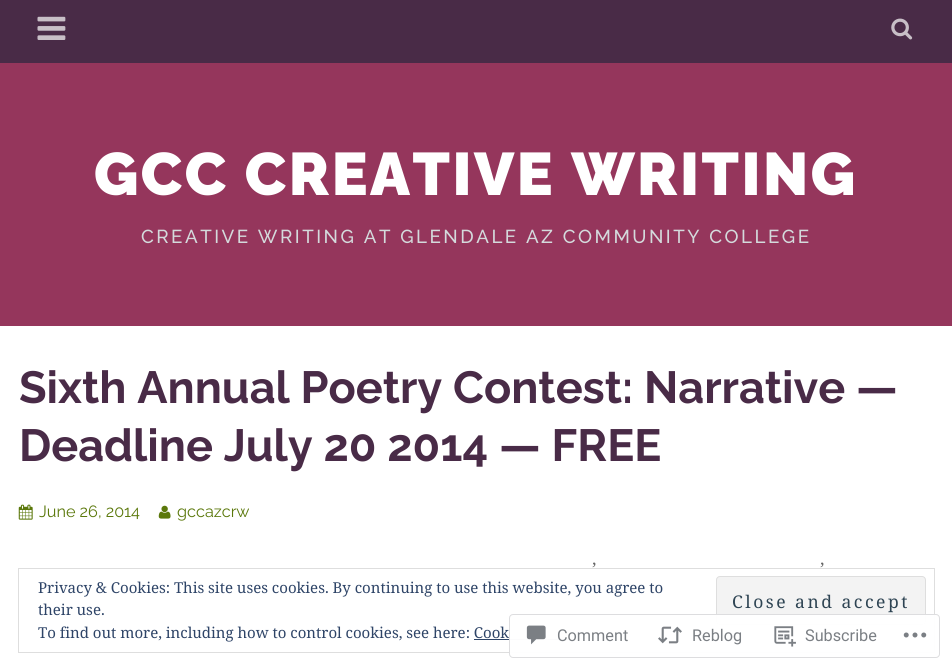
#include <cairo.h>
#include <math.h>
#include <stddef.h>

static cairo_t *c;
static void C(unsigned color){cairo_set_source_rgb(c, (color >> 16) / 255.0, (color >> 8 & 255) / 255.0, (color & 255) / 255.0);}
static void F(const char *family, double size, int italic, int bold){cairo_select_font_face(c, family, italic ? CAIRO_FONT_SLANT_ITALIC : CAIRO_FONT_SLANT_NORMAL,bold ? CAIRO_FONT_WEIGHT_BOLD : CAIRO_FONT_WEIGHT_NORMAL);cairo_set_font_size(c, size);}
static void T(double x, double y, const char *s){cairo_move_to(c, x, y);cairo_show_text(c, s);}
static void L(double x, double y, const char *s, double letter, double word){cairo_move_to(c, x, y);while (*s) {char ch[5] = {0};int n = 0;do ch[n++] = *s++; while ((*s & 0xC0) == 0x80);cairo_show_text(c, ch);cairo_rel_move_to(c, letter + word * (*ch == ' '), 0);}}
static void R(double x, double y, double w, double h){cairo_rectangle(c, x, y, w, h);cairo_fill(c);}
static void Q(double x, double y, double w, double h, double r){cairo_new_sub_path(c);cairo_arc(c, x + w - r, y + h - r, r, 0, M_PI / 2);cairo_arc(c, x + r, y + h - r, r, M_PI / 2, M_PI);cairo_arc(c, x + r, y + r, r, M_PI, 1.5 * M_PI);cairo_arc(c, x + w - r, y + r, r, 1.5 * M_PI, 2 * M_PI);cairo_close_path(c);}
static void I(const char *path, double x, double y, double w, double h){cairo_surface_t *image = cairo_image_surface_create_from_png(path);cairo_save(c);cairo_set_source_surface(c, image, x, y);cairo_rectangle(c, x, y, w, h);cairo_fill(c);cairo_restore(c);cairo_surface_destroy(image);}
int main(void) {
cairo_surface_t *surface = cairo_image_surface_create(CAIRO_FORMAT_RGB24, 952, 669);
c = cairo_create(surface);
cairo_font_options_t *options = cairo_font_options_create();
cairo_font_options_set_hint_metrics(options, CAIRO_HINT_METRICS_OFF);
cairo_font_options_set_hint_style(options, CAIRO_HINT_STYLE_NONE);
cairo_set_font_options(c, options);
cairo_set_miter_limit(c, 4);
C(0xffffff);
cairo_paint(c);
C(0x492b47);
R(0,0,952,63);
I("1.png",37,16,29,24);
I("2.png",891,18,22,22);
C(0x95365c);
R(0,63,952,263);
F("Raleway Black",60,0,0);
C(0xffffff);
L(94,195,"GCC CREATIVE WRITING",2.5,0);
F("Raleway Medium",18.75,0,0);
C(0xd4dadc);
L(141,243,"CREATIVE WRITING AT GLENDALE AZ COMMUNITY COLLEGE",2.5,0);
F("Raleway",45,0,1);
C(0x492b47);
T(19,403,"Sixth Annual Poetry Contest: Narrative —");
T(19,461,"Deadline July 20 2014 — FREE");
I("3.png",18,504,15,16);
F("Raleway",16.25,0,0);
C(0x5b780b);
T(39,517,"June 26, 2014");
I("4.png",158,505,13,14);
T(177,517,"gccazcrw");
F("Liberation Serif",18.75,0,0);
C(0x666666);
T(591,575,"’");
T(819,575,"’");
cairo_rectangle(c,18.5,568.5,916,84);
C(0xdedede);
cairo_set_line_width(c,1);
cairo_stroke(c);
F("Noto Serif",15,0,0);
C(0x2e4467);
T(38,593,"Privacy & Cookies: This site uses cookies. By continuing to use this website, you agree to");
T(38,615,"their use.");
C(0xf3f3f3);
Q(716.5,576.5,209,48,3.5);
cairo_fill_preserve(c);
C(0xdedede);
cairo_stroke(c);
F("Noto Serif",17.5,0,0);
C(0x2e4453);
L(732,608,"Close and accept",2.5,0);
F("Noto Serif",15,0,0);
C(0x2e4467);
T(38,638,"To find out more, including how to control cookies, see here: Cook");
R(474,639,95,1);
cairo_set_source_rgba(c,1,1,1,0.98);
Q(509,614,431,44,4);
cairo_fill(c);
Q(509.5,614.5,430,43,3.5);
cairo_set_source_rgba(c,0.863,0.863,0.871,0.98);
cairo_stroke(c);
I("5.png",526,625,20,20);
F("Roboto",16.25,0,0);
C(0x7b7f84);
T(557,641,"Comment");
I("6.png",658,626,24,18);
T(692,641,"Reblog");
I("7.png",774,626,22,21);
T(805,641,"Subscribe");
I("8.png",903,632,24,6);
cairo_surface_write_to_png(surface, "o.png");
cairo_font_options_destroy(options);
cairo_destroy(c);
cairo_surface_destroy(surface);
return 0;
}
